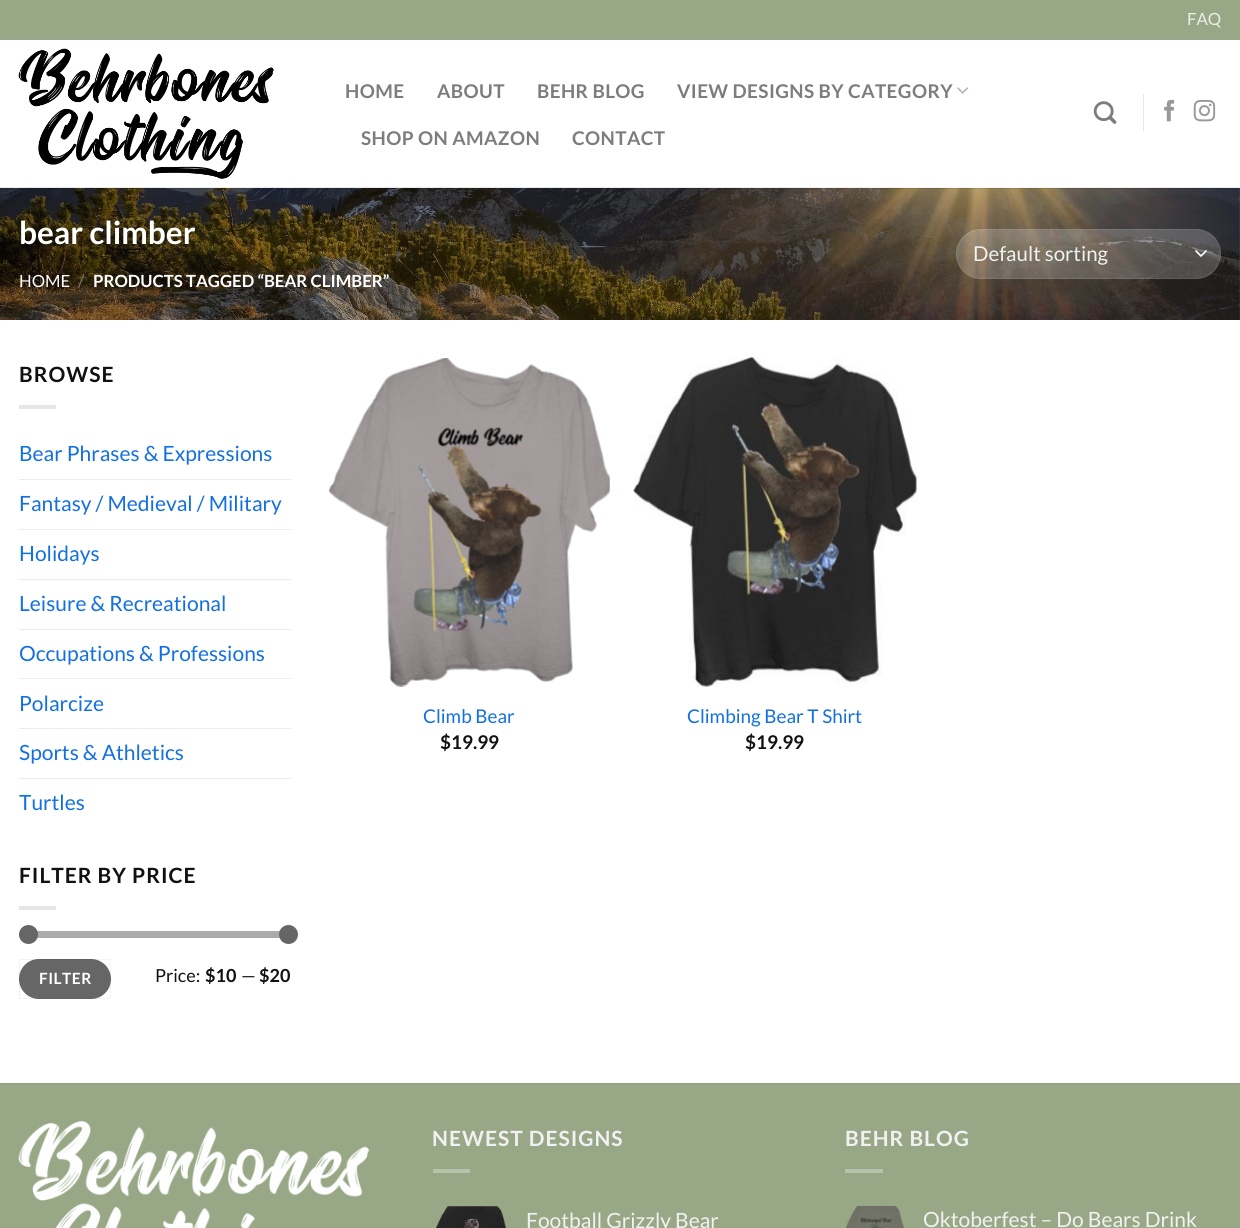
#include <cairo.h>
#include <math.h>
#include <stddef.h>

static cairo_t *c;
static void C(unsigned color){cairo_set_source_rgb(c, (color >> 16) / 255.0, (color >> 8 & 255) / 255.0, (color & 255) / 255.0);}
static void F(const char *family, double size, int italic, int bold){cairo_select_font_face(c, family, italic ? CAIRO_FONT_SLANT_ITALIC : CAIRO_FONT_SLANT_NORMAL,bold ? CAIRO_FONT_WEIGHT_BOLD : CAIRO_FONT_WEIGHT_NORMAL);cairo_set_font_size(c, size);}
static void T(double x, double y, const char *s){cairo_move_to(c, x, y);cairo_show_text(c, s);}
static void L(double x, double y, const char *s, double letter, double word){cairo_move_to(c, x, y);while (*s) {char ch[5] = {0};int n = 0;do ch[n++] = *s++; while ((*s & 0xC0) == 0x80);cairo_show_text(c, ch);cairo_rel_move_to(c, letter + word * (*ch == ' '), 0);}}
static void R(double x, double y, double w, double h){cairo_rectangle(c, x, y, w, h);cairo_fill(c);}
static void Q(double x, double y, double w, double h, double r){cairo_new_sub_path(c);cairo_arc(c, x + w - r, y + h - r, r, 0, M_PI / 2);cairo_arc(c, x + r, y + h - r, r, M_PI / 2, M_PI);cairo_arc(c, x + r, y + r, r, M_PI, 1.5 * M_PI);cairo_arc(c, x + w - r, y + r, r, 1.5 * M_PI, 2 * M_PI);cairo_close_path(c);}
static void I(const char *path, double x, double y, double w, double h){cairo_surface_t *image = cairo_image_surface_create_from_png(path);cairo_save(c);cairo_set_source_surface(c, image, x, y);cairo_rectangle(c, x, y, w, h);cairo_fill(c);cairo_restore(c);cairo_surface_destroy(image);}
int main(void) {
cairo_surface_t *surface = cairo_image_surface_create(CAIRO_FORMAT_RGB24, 1240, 1228);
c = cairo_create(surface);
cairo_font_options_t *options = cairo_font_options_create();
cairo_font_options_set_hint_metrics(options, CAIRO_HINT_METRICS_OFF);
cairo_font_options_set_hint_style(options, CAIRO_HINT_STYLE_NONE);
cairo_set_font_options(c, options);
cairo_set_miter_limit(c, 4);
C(0xffffff);
cairo_paint(c);
C(0x98a886);
R(0,0,1240,40);
F("Lato",16.75,0,0);
C(0xeaeee7);
T(1187,25,"FAQ");
I("1.png",18,48,256,131);
F("Lato",18.9,0,1);
C(0x7d7d7d);
L(345,98,"HOME",.4,0);
L(437,98,"ABOUT",.4,0);
L(537,98,"BEHR BLOG",.4,0);
L(677,98,"VIEW DESIGNS BY CATEGORY",.4,0);
I("2.png",957,87,12,7);
L(361,145,"SHOP ON AMAZON",.4,0);
L(572,145,"CONTACT",.4,0);
I("3.png",1093,101,24,23);
C(0xe6e6e6);
R(1143,94,1,37);
I("4.png",1164,99,11,23);
I("5.png",1193,99,23,23);
I("6.png",0,187,1240,133);
cairo_set_source_rgba(c,0.067,0.067,0.067,0.1);
R(19,188,1202,1);
cairo_set_source_rgba(c,1,1,1,0.9);
R(0,187,1240,1);
F("Lato",31.5,0,1);
C(0xffffff);
T(19,244,"bear climber");
F("Lato",16.75,0,0);
T(19,287,"HOME");
C(0x7f7766);
T(78,287,"/");
F("Lato",16.75,0,1);
C(0xffffff);
T(93,287,"PRODUCTS TAGGED “BEAR CLIMBER”");
cairo_set_source_rgba(c,1,1,1,0.2);
Q(956,229,265,50,25);
cairo_fill(c);
cairo_new_path(c);
cairo_move_to(c,1196,251);
cairo_line_to(c,1201,256);
cairo_line_to(c,1206,251);
C(0xffffff);
cairo_set_line_width(c,1.7);
cairo_set_line_cap(c,CAIRO_LINE_CAP_ROUND);
cairo_set_line_join(c,CAIRO_LINE_JOIN_ROUND);
cairo_stroke(c);
Q(956.5,229.5,264,49,24.5);
cairo_set_source_rgba(c,1,1,1,0.09);
cairo_set_line_width(c,1);
cairo_set_line_cap(c,CAIRO_LINE_CAP_BUTT);
cairo_set_line_join(c,CAIRO_LINE_JOIN_MITER);
cairo_stroke(c);
F("Lato",20.5,0,0);
C(0xf1f1f1);
T(973,261,"Default sorting");
F("Lato",21,0,1);
C(0x111111);
L(19,382,"BROWSE",1,0);
C(0xe6e6e6);
R(19,405,37,4);
F("Lato",21,0,0);
C(0x1370e1);
T(19,461,"Bear Phrases & Expressions");
C(0xececec);
R(19,479,272,1);
C(0x1370e1);
T(19,511,"Fantasy / Medieval / Military");
C(0xececec);
R(19,529,272,1);
C(0x1370e1);
T(19,561,"Holidays");
C(0xececec);
R(19,579,272,1);
C(0x1370e1);
T(19,611,"Leisure & Recreational");
C(0xececec);
R(19,629,272,1);
C(0x1370e1);
T(19,661,"Occupations & Professions");
C(0xececec);
R(19,678,272,1);
C(0x1370e1);
T(19,711,"Polarcize");
C(0xececec);
R(19,728,272,1);
C(0x1370e1);
T(19,760,"Sports & Athletics");
C(0xececec);
R(19,778,272,1);
C(0x1370e1);
T(19,810,"Turtles");
F("Lato",21,0,1);
C(0x111111);
L(19,883,"FILTER BY PRICE",1,0);
C(0xe6e6e6);
R(19,906,37,4);
C(0xf1f1f1);
Q(19,931,272,7,3.5);
cairo_fill(c);
cairo_set_source_rgba(c,0.4,0.4,0.4,0.5);
Q(19,931,272,7,3.5);
cairo_fill(c);
C(0x666666);
cairo_arc(c,28.5,934.5,9.5,0,2 * M_PI);
cairo_fill(c);
cairo_arc(c,288.5,934.5,9.5,0,2 * M_PI);
cairo_fill(c);
Q(19,959,92,40,20);
cairo_fill(c);
cairo_rectangle(c,19.5,959.5,91,39);
cairo_set_source_rgba(c,0,0,0,0.05);
cairo_stroke(c);
F("Lato",15.5,0,1);
C(0xffffff);
L(39,984,"FILTER",.5,0);
F("Lato",18,0,0);
C(0x111111);
T(155,982,"Price:");
F("Lato",18,0,1);
T(205,982,"$10");
F("Lato",18,0,0);
T(241,982,"—");
F("Lato",18,0,1);
T(259,982,"$20");
I("7.png",329,358,281,329);
F("Lato",18.9,0,0);
C(0x1370e1);
T(423,723,"Climb Bear");
F("Lato",18.9,0,1);
C(0x111111);
T(440,749,"$19.99");
I("8.png",633,357,284,330);
F("Lato",18.9,0,0);
C(0x1370e1);
T(687,723,"Climbing Bear T Shirt");
F("Lato",18.9,0,1);
C(0x111111);
T(745,749,"$19.99");
C(0x98a886);
R(0,1084,1240,144);
C(0x90a07f);
R(0,1083,1240,1);
I("9.png",18,1121,351,107);
F("Lato",21,0,1);
C(0xf1f1f1);
L(432,1146,"NEWEST DESIGNS",1,0);
C(0xb7c2aa);
R(433,1169,37,4);
I("10.png",435,1206,71,22);
F("Lato",21,0,0);
C(0xf1f1f1);
T(526,1228,"Football Grizzly Bear");
F("Lato",21,0,1);
L(845,1146,"BEHR BLOG",1,0);
C(0xb7c2aa);
R(845,1169,38,4);
I("11.png",845,1206,59,22);
F("Lato",21,0,0);
C(0xf1f1f1);
T(923,1227,"Oktoberfest – Do Bears Drink");
cairo_surface_write_to_png(surface, "o.png");
cairo_font_options_destroy(options);
cairo_destroy(c);
cairo_surface_destroy(surface);
return 0;
}
